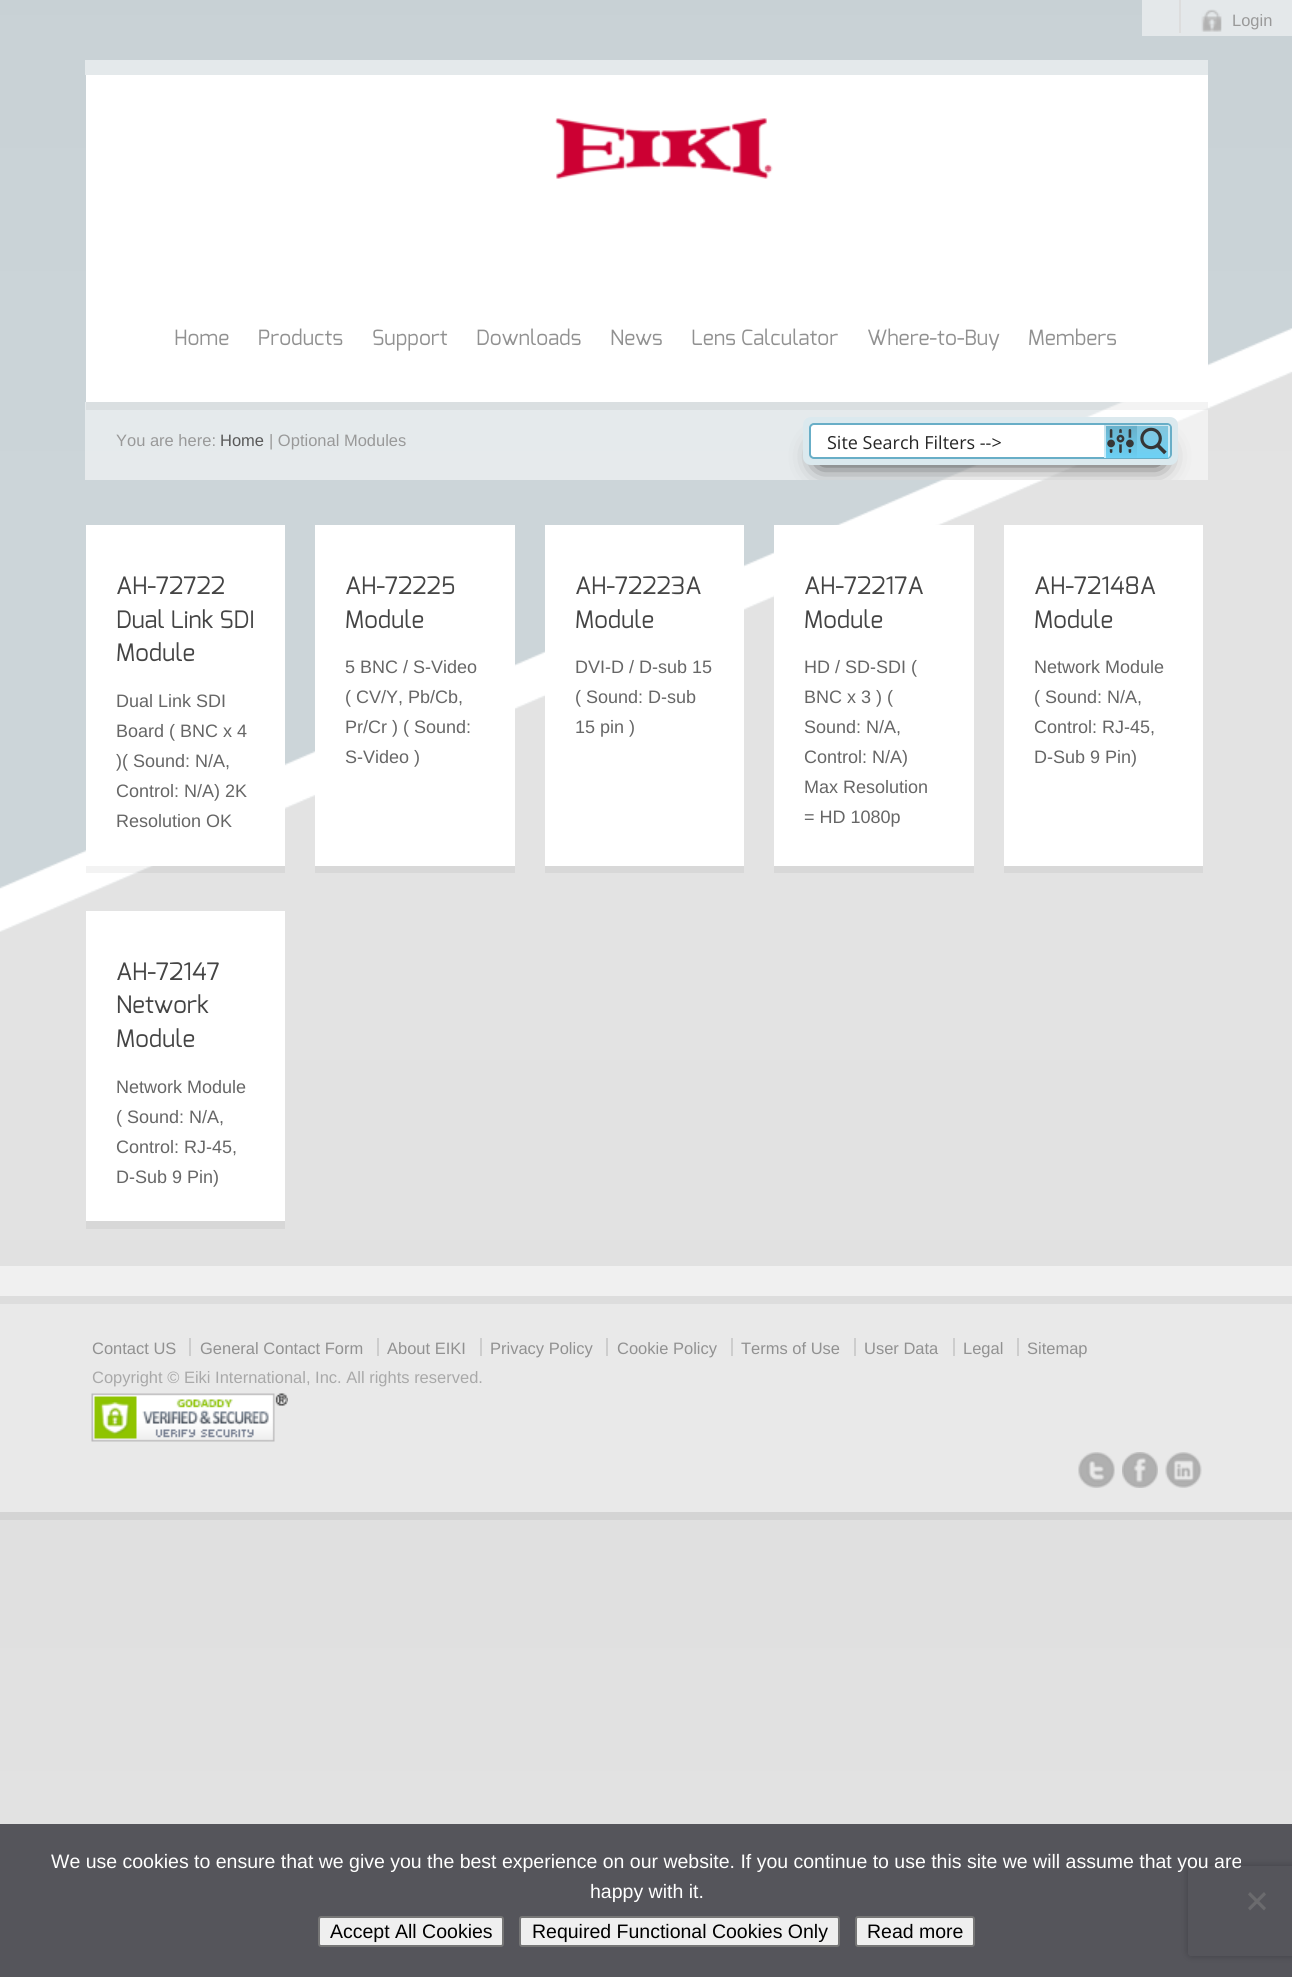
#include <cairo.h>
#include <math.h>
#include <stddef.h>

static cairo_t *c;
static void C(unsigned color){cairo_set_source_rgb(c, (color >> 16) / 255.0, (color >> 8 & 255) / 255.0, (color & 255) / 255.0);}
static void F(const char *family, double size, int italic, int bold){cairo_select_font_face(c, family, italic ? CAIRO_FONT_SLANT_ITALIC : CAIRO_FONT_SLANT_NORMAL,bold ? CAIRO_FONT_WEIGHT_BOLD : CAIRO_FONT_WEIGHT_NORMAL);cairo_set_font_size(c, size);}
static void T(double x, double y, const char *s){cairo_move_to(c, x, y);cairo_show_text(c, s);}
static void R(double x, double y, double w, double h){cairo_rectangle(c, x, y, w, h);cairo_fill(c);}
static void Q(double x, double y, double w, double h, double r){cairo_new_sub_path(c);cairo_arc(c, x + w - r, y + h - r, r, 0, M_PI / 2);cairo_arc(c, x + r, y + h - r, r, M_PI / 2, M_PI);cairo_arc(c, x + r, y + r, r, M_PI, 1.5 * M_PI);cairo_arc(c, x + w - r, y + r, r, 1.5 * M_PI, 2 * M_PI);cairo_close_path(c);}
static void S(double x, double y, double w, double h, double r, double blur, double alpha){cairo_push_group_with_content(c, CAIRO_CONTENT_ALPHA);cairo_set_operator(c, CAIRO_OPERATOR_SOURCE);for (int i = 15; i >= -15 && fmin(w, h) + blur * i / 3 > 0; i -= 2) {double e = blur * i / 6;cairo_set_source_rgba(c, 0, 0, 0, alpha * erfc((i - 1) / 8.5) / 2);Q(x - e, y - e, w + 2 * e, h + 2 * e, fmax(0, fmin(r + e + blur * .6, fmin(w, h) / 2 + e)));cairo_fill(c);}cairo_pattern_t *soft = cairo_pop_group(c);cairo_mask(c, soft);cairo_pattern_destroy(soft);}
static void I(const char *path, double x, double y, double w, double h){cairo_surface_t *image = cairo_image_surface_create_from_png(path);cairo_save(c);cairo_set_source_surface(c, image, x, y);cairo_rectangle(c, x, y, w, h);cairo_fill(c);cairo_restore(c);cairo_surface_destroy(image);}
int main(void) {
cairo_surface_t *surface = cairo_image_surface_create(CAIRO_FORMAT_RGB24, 1292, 1977);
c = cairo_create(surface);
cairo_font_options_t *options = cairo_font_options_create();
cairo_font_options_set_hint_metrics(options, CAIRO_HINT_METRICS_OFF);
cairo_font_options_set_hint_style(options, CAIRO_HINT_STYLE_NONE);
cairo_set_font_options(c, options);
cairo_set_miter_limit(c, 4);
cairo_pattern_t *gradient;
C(0xffffff);
cairo_paint(c);
I("1.png",0,0,1292,1977);
I("3.png",0,0,1292,932);
C(0xe4e8ea);
R(1142,0,150,36);
I("2.png",1201,9,21,23);
C(0xdddddd);
R(1179,0,2,33);
F("Liberation Sans",16.5,0,0);
C(0x999999);
T(1232,26,"Login");
C(0xe4e9eb);
R(85,60,1123,15);
C(0xffffff);
R(86,75,1122,327);
I("4.png",555,118,218,61);
F("Exo",21,0,0);
C(0x919191);
T(174,345,"Home");
T(258,345,"Products");
T(372,345,"Support");
T(476,345,"Downloads");
T(610,345,"News");
T(691,345,"Lens Calculator");
T(867,345,"Where-to-Buy");
T(1028,345,"Members");
cairo_set_source_rgba(c,1,1,1,0.5);
R(85,402,1123,78);
cairo_set_source_rgba(c,0,0,0,0.05);
R(86,402,1122,8);
F("Liberation Sans",16.5,0,0);
C(0x999999);
T(116,446,"You are here:");
C(0x595959);
T(220,446,"Home");
C(0x999999);
T(269,446,"| Optional Modules");
cairo_save(c);
cairo_rectangle(c,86,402,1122,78);
cairo_clip(c);
C(0x000000);
S(822,452,336,9,0,13.5,1);
cairo_restore(c);
C(0xdbe9ee);
Q(803,417,375,48,8);
cairo_fill(c);
C(0xffffff);
Q(810,424,361,34,4);
cairo_fill_preserve(c);
C(0x68aec7);
cairo_stroke(c);
F("Open Sans",18,0,0);
C(0x262626);
T(827,449,"Site Search Filters -->");
gradient = cairo_pattern_create_linear(1122,423,1119,459);
cairo_pattern_add_color_stop_rgba(gradient,0,0.408,0.682,0.78,1);
cairo_pattern_add_color_stop_rgba(gradient,1,0.424,0.82,0.961,1);
cairo_set_source(c,gradient);
cairo_pattern_destroy(gradient);
R(1104,425,33,33);
cairo_save(c);
cairo_rectangle(c,1104,425,33,33);
cairo_clip(c);
cairo_set_source_rgba(c,1,1,1,0.63);
cairo_new_path(c);
cairo_move_to(c,1106,426);
cairo_line_to(c,1106,458);
cairo_line_to(c,956,458);
cairo_line_to(c,956,425);
cairo_line_to(c,1167,425);
cairo_curve_to(c,1169,425,1170,426,1170,428);
cairo_line_to(c,1170,455);
cairo_curve_to(c,1170,457,1169,458,1167,458);
cairo_line_to(c,1138,458);
cairo_line_to(c,1138,426);
cairo_close_path(c);
cairo_fill(c);
cairo_restore(c);
I("5.png",1107,429,27,24);
gradient = cairo_pattern_create_linear(1154,425,1154,458);
cairo_pattern_add_color_stop_rgba(gradient,0,0.518,0.773,0.863,1);
cairo_pattern_add_color_stop_rgba(gradient,1,0.424,0.82,0.961,1);
cairo_set_source(c,gradient);
cairo_pattern_destroy(gradient);
cairo_new_path(c);
cairo_move_to(c,1137,425);
cairo_line_to(c,1167,425);
cairo_curve_to(c,1168.5,425,1170,426.5,1170,428);
cairo_line_to(c,1170,455);
cairo_curve_to(c,1170,456.5,1168.5,458,1167,458);
cairo_line_to(c,1137,458);
cairo_close_path(c);
cairo_fill(c);
cairo_save(c);
cairo_rectangle(c,1137,425,33,33);
cairo_clip(c);
cairo_set_source_rgba(c,1,1,1,0.61);
cairo_new_path(c);
cairo_move_to(c,1136,426);
cairo_line_to(c,1136,458);
cairo_line_to(c,988,458);
cairo_line_to(c,988,425);
cairo_line_to(c,1167,425);
cairo_curve_to(c,1169,425,1170,426,1170,428);
cairo_line_to(c,1170,455);
cairo_curve_to(c,1170,456,1169,457,1168,458);
cairo_line_to(c,1168,426);
cairo_close_path(c);
cairo_fill(c);
cairo_restore(c);
I("6.png",1140,427,27,28);
cairo_set_source_rgba(c,0,0,0,0.05);
R(86,866,199,7);
C(0xffffff);
R(86,525,199,341);
F("Exo",24,0,0);
C(0x444444);
T(116,594,"AH-72722");
T(116,628,"Dual Link SDI");
T(116,661,"Module");
F("Liberation Sans",18,0,0);
C(0x666666);
T(116,707,"Dual Link SDI");
T(116,737,"Board ( BNC x 4");
T(116,767,")( Sound: N/A,");
T(116,797,"Control: N/A) 2K");
T(116,827,"Resolution OK");
cairo_set_source_rgba(c,0,0,0,0.05);
cairo_new_path(c);
cairo_move_to(c,315,866);
cairo_line_to(c,315,873);
cairo_line_to(c,515,873);
cairo_line_to(c,515,533);
cairo_line_to(c,514,533);
cairo_line_to(c,514,866);
cairo_close_path(c);
cairo_fill(c);
C(0xffffff);
R(315,525,200,341);
F("Exo",24,0,0);
C(0x444444);
T(345,594,"AH-72225");
T(345,628,"Module");
F("Liberation Sans",18,0,0);
C(0x666666);
T(345,673,"5 BNC / S-Video");
T(345,703,"( CV/Y, Pb/Cb,");
T(345,733,"Pr/Cr ) ( Sound:");
T(345,763,"S-Video )");
C(0xd8d8d8);
R(545,866,199,7);
C(0xffffff);
R(545,525,199,341);
F("Exo",24,0,0);
C(0x444444);
T(575,594,"AH-72223A");
T(575,628,"Module");
F("Liberation Sans",18,0,0);
C(0x666666);
T(575,673,"DVI-D / D-sub 15");
T(575,703,"( Sound: D-sub");
T(575,733,"15 pin )");
C(0xd8d8d8);
cairo_new_path(c);
cairo_move_to(c,774,866);
cairo_line_to(c,774,873);
cairo_line_to(c,974,873);
cairo_line_to(c,974,533);
cairo_line_to(c,974,866);
cairo_close_path(c);
cairo_fill(c);
C(0xffffff);
R(774,525,200,341);
F("Exo",24,0,0);
C(0x444444);
T(804,594,"AH-72217A");
T(804,628,"Module");
F("Liberation Sans",18,0,0);
C(0x666666);
T(804,673,"HD / SD-SDI (");
T(804,703,"BNC x 3 ) (");
T(804,733,"Sound: N/A,");
T(804,763,"Control: N/A)");
T(804,793,"Max Resolution");
T(804,823,"= HD 1080p");
C(0xd8d8d8);
R(1004,866,199,7);
C(0xffffff);
R(1004,525,199,341);
F("Exo",24,0,0);
C(0x444444);
T(1034,594,"AH-72148A");
T(1034,628,"Module");
F("Liberation Sans",18,0,0);
C(0x666666);
T(1034,673,"Network Module");
T(1034,703,"( Sound: N/A,");
T(1034,733,"Control: RJ-45,");
T(1034,763,"D-Sub 9 Pin)");
C(0xd7d7d7);
R(86,1221,199,8);
C(0xffffff);
R(86,911,199,310);
F("Exo",24,0,0);
C(0x444444);
T(116,980,"AH-72147");
T(116,1013,"Network");
T(116,1047,"Module");
F("Liberation Sans",18,0,0);
C(0x666666);
T(116,1093,"Network Module");
T(116,1123,"( Sound: N/A,");
T(116,1153,"Control: RJ-45,");
T(116,1183,"D-Sub 9 Pin)");
C(0xf0f0f0);
R(0,1266,1292,30);
C(0xd4d4d4);
R(0,1512,1292,8);
C(0xe9e9e9);
R(0,1304,1292,208);
C(0xdddddd);
R(0,1296,1292,8);
F("Liberation Sans",16.5,0,0);
C(0x919191);
T(92,1354,"Contact US");
T(200,1354,"General Contact Form");
C(0xcdcdcd);
R(189,1338,2,18);
C(0x919191);
T(387,1354,"About EIKI");
C(0xcdcdcd);
R(377,1338,2,18);
C(0x919191);
T(490,1354,"Privacy Policy");
C(0xcdcdcd);
R(480,1338,2,18);
C(0x919191);
T(617,1354,"Cookie Policy");
C(0xcdcdcd);
R(606,1338,2,18);
C(0x919191);
T(741,1354,"Terms of Use");
C(0xcdcdcd);
R(731,1338,2,18);
C(0x919191);
T(864,1354,"User Data");
C(0xcdcdcd);
R(854,1338,2,18);
C(0x919191);
T(963,1354,"Legal");
C(0xcdcdcd);
R(953,1338,2,18);
C(0x919191);
T(1027,1354,"Sitemap");
C(0xcdcdcd);
R(1017,1338,2,18);
C(0xa9a9a9);
T(92,1383,"Copyright © Eiki International, Inc. All rights reserved.");
I("7.png",91,1393,197,49);
I("8.png",1078,1452,37,36);
I("9.png",1122,1452,36,36);
I("10.png",1165,1452,37,36);
cairo_save(c);
cairo_set_fill_rule(c,CAIRO_FILL_RULE_EVEN_ODD);
cairo_new_path(c);
cairo_move_to(c,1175,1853);
cairo_line_to(c,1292,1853);
cairo_line_to(c,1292,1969);
cairo_line_to(c,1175,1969);
cairo_close_path(c);
cairo_move_to(c,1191,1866);
cairo_line_to(c,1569,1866);
cairo_curve_to(c,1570.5,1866,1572,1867.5,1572,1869);
cairo_line_to(c,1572,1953);
cairo_curve_to(c,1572,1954.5,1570.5,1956,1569,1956);
cairo_line_to(c,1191,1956);
cairo_curve_to(c,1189.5,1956,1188,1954.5,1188,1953);
cairo_line_to(c,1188,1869);
cairo_curve_to(c,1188,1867.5,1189.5,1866,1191,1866);
cairo_close_path(c);
cairo_clip(c);
C(0x808080);
S(1188,1866,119,90,3,4,1);
cairo_restore(c);
cairo_set_source_rgba(c,0.196,0.196,0.227,0.8);
R(0,1824,1292,153);
F("Liberation Sans",19.5,0,0);
C(0xffffff);
T(51,1868,"We use cookies to ensure that we give you the best experience on our website. If you continue to use this site we will assume that you are");
T(590,1898,"happy with it.");
C(0x6b6b6e);
cairo_new_path(c);
cairo_move_to(c,1264,1892);
cairo_line_to(c,1266,1894.5);
cairo_line_to(c,1250,1910.5);
cairo_line_to(c,1248,1908);
cairo_close_path(c);
cairo_fill(c);
cairo_new_path(c);
cairo_move_to(c,1248,1894.5);
cairo_line_to(c,1250,1892);
cairo_line_to(c,1266,1908);
cairo_line_to(c,1264,1910.5);
cairo_close_path(c);
cairo_fill(c);
C(0xefefef);
Q(319,1917,184,29,2);
cairo_fill_preserve(c);
C(0x767676);
cairo_stroke(c);
C(0x000000);
T(330,1938,"Accept All Cookies");
C(0xefefef);
Q(520,1917,319,29,2);
cairo_fill_preserve(c);
C(0x767676);
cairo_stroke(c);
C(0x000000);
T(532,1938,"Required Functional Cookies Only");
C(0xefefef);
Q(856,1917,118,29,2);
cairo_fill_preserve(c);
C(0x767676);
cairo_stroke(c);
C(0x000000);
T(867,1938,"Read more");
cairo_surface_write_to_png(surface, "o.png");
cairo_font_options_destroy(options);
cairo_destroy(c);
cairo_surface_destroy(surface);
return 0;
}
